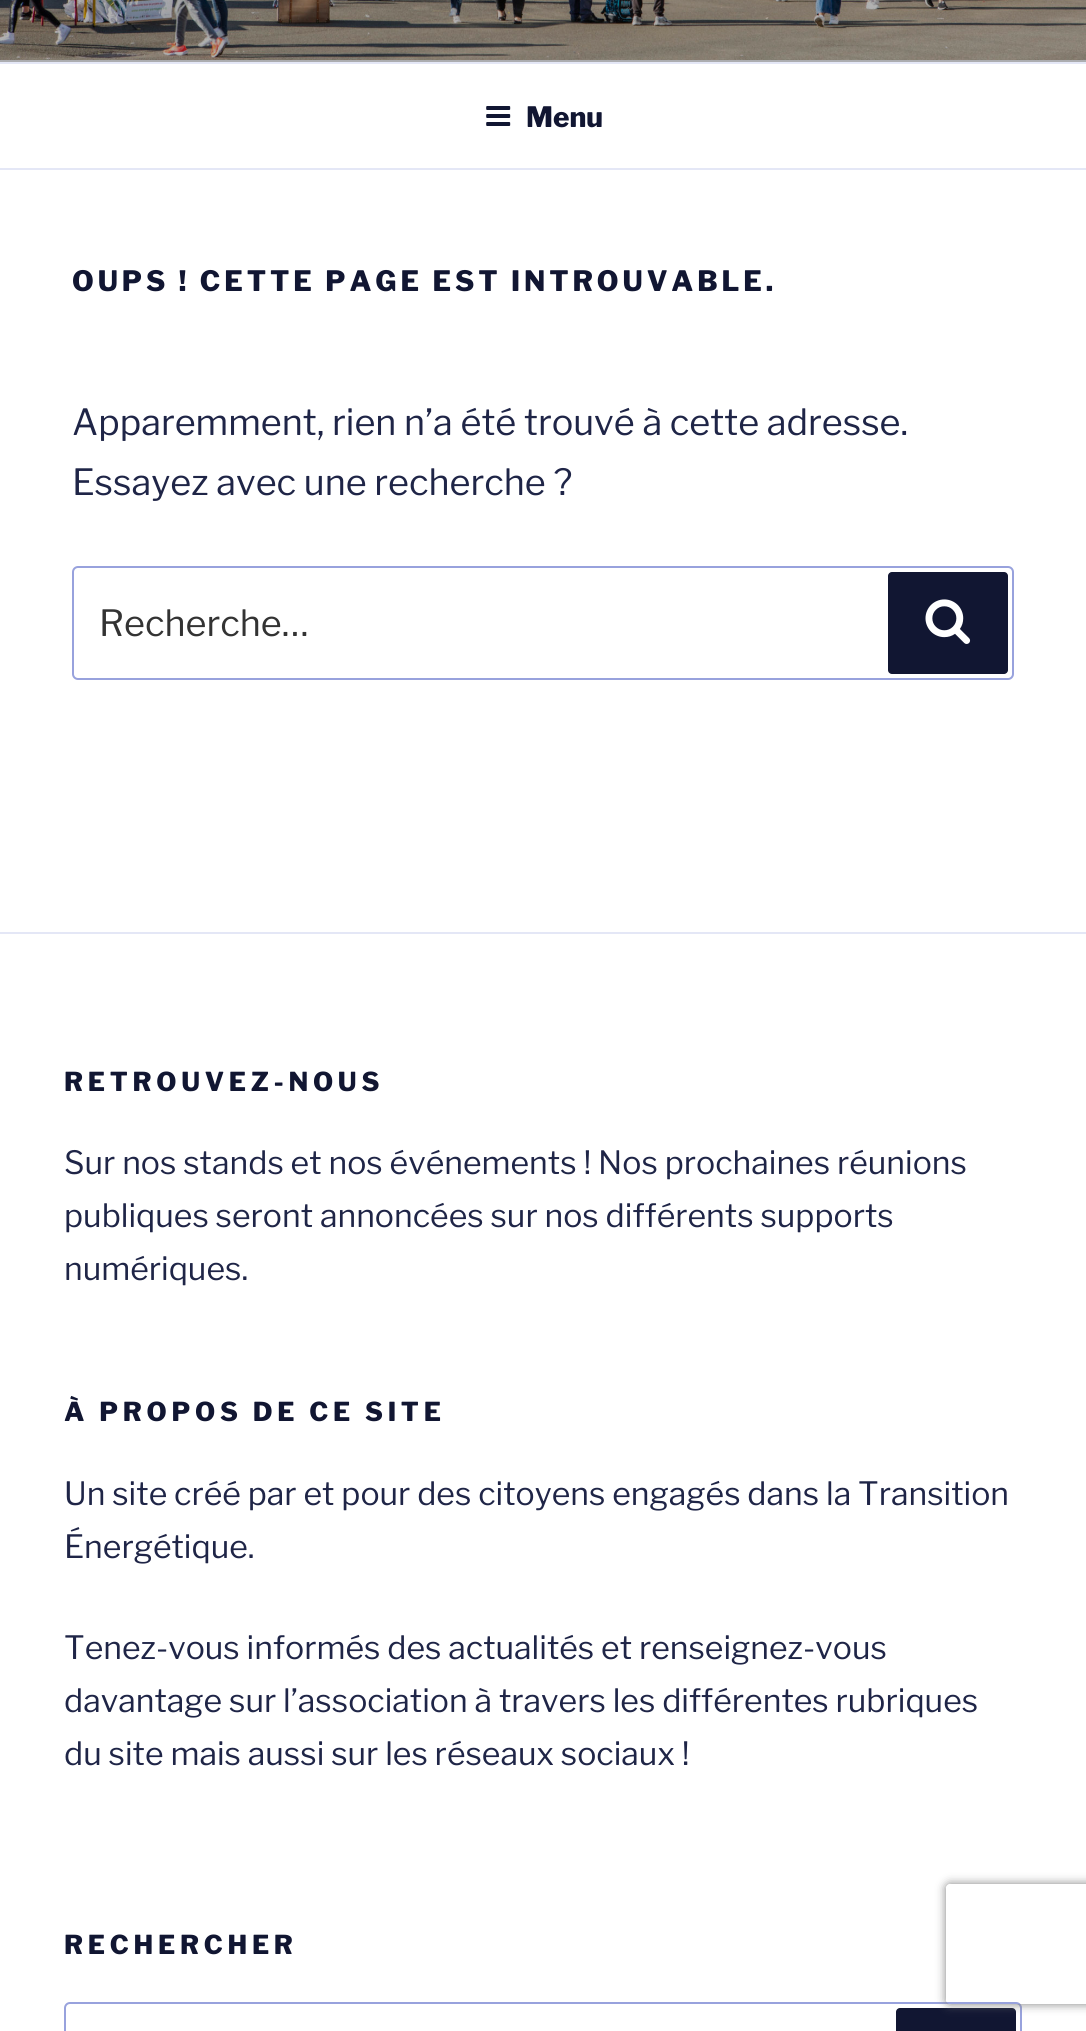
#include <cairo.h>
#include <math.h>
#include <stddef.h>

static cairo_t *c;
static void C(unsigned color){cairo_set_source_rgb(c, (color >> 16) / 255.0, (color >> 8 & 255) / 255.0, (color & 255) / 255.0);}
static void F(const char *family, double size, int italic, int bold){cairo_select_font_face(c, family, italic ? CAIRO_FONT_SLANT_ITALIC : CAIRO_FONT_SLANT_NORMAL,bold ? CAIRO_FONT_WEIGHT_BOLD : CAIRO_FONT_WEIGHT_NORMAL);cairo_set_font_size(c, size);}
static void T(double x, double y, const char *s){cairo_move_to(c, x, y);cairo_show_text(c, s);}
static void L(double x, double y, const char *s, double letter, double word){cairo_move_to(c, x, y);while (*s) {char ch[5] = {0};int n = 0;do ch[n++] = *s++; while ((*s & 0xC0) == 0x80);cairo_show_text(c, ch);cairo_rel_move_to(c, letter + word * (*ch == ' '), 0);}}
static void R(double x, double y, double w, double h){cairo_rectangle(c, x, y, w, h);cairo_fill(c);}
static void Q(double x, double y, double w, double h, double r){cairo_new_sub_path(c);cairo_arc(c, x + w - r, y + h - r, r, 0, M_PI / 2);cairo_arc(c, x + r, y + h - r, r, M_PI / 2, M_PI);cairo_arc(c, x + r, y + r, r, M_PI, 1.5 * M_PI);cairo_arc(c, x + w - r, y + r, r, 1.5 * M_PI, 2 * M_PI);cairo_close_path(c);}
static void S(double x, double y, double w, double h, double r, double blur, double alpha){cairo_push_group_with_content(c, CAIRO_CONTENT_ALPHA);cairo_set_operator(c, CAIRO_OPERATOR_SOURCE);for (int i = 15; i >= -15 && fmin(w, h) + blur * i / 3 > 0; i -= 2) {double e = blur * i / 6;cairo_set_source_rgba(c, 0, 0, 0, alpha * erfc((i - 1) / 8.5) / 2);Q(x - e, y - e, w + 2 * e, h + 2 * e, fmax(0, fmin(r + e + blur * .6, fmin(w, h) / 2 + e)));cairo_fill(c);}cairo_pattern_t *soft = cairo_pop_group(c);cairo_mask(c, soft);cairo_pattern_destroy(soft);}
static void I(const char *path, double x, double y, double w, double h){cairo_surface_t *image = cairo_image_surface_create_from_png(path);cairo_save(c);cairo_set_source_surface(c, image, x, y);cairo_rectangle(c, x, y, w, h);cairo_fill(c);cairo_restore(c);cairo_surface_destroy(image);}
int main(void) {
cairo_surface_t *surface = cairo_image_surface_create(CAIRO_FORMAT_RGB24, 1086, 2031);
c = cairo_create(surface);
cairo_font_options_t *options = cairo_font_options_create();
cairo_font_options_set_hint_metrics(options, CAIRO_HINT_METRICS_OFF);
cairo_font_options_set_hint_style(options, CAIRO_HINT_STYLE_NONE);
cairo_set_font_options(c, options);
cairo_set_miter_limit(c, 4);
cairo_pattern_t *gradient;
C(0xffffff);
cairo_paint(c);
C(0xf7f8fc);
R(0,60,1086,2);
I("1.png",0,0,1086,60);
gradient = cairo_pattern_create_linear(543,-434,543,62);
cairo_pattern_add_color_stop_rgba(gradient,0,0,0,0,0);
cairo_pattern_add_color_stop_rgba(gradient,.75,0,0,0,.3);
cairo_pattern_add_color_stop_rgba(gradient,1,0,0,0,.3);
cairo_set_source(c,gradient);
cairo_pattern_destroy(gradient);
R(0,0,1086,62);
C(0xe4e7f6);
R(0,62,1086,2);
R(0,168,1086,2);
I("2.png",486,106,25,20);
F("Libre Franklin Thin",28,0,0);
C(0x111632);
T(526,127,"Menu");
L(72,291,"OUPS ! CETTE PAGE EST INTROUVABLE.",3.9,0);
F("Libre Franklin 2 Thin",36,0,0);
C(0x1f2547);
T(72,435,"Apparemment, rien n’a été trouvé à cette adresse.");
T(72,495,"Essayez avec une recherche ?");
Q(73,567,940,112,5);
C(0x98a2dd);
cairo_stroke(c);
C(0x333333);
T(99,636,"Recherche…");
C(0x111632);
Q(888,572,120,102,4);
cairo_fill(c);
I("3.png",925,599,46,45);
C(0xe4e7f6);
R(0,932,1086,2);
F("Libre Franklin Thin",26,0,0);
C(0x111632);
L(64,1091,"RETROUVEZ-NOUS",4.75,0);
F("Libre Franklin 2 Thin",32,0,0);
C(0x1f2547);
T(64,1174,"Sur nos stands et nos événements ! Nos prochaines réunions");
T(64,1227,"publiques seront annoncées sur nos différents supports");
T(64,1280,"numériques.");
F("Libre Franklin Thin",26,0,0);
C(0x111632);
L(64,1421,"À PROPOS DE CE SITE",4.75,0);
F("Libre Franklin 2 Thin",32,0,0);
C(0x1f2547);
T(64,1505,"Un site créé par et pour des citoyens engagés dans la Transition");
T(64,1558,"Énergétique.");
T(64,1659,"Tenez-vous informés des actualités et renseignez-vous");
T(64,1712,"davantage sur l’association à travers les différentes rubriques");
T(64,1765,"du site mais aussi sur les réseaux sociaux !");
F("Libre Franklin Thin",26,0,0);
C(0x111632);
L(64,1954,"RECHERCHER",4.75,0);
Q(65,2003,956,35,5);
C(0x98a2dd);
cairo_stroke(c);
C(0x111632);
Q(896,2008,120,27,4);
cairo_fill(c);
cairo_save(c);
cairo_set_fill_rule(c,CAIRO_FILL_RULE_EVEN_ODD);
cairo_new_path(c);
cairo_move_to(c,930,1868);
cairo_line_to(c,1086,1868);
cairo_line_to(c,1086,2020);
cairo_line_to(c,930,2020);
cairo_close_path(c);
cairo_move_to(c,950,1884);
cairo_line_to(c,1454,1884);
cairo_curve_to(c,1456,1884,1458,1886,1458,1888);
cairo_line_to(c,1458,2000);
cairo_curve_to(c,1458,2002,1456,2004,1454,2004);
cairo_line_to(c,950,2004);
cairo_curve_to(c,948,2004,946,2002,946,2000);
cairo_line_to(c,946,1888);
cairo_curve_to(c,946,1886,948,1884,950,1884);
cairo_close_path(c);
cairo_clip(c);
C(0x808080);
S(946,1884,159,120,4,5,1);
cairo_restore(c);
cairo_surface_write_to_png(surface, "o.png");
cairo_font_options_destroy(options);
cairo_destroy(c);
cairo_surface_destroy(surface);
return 0;
}
